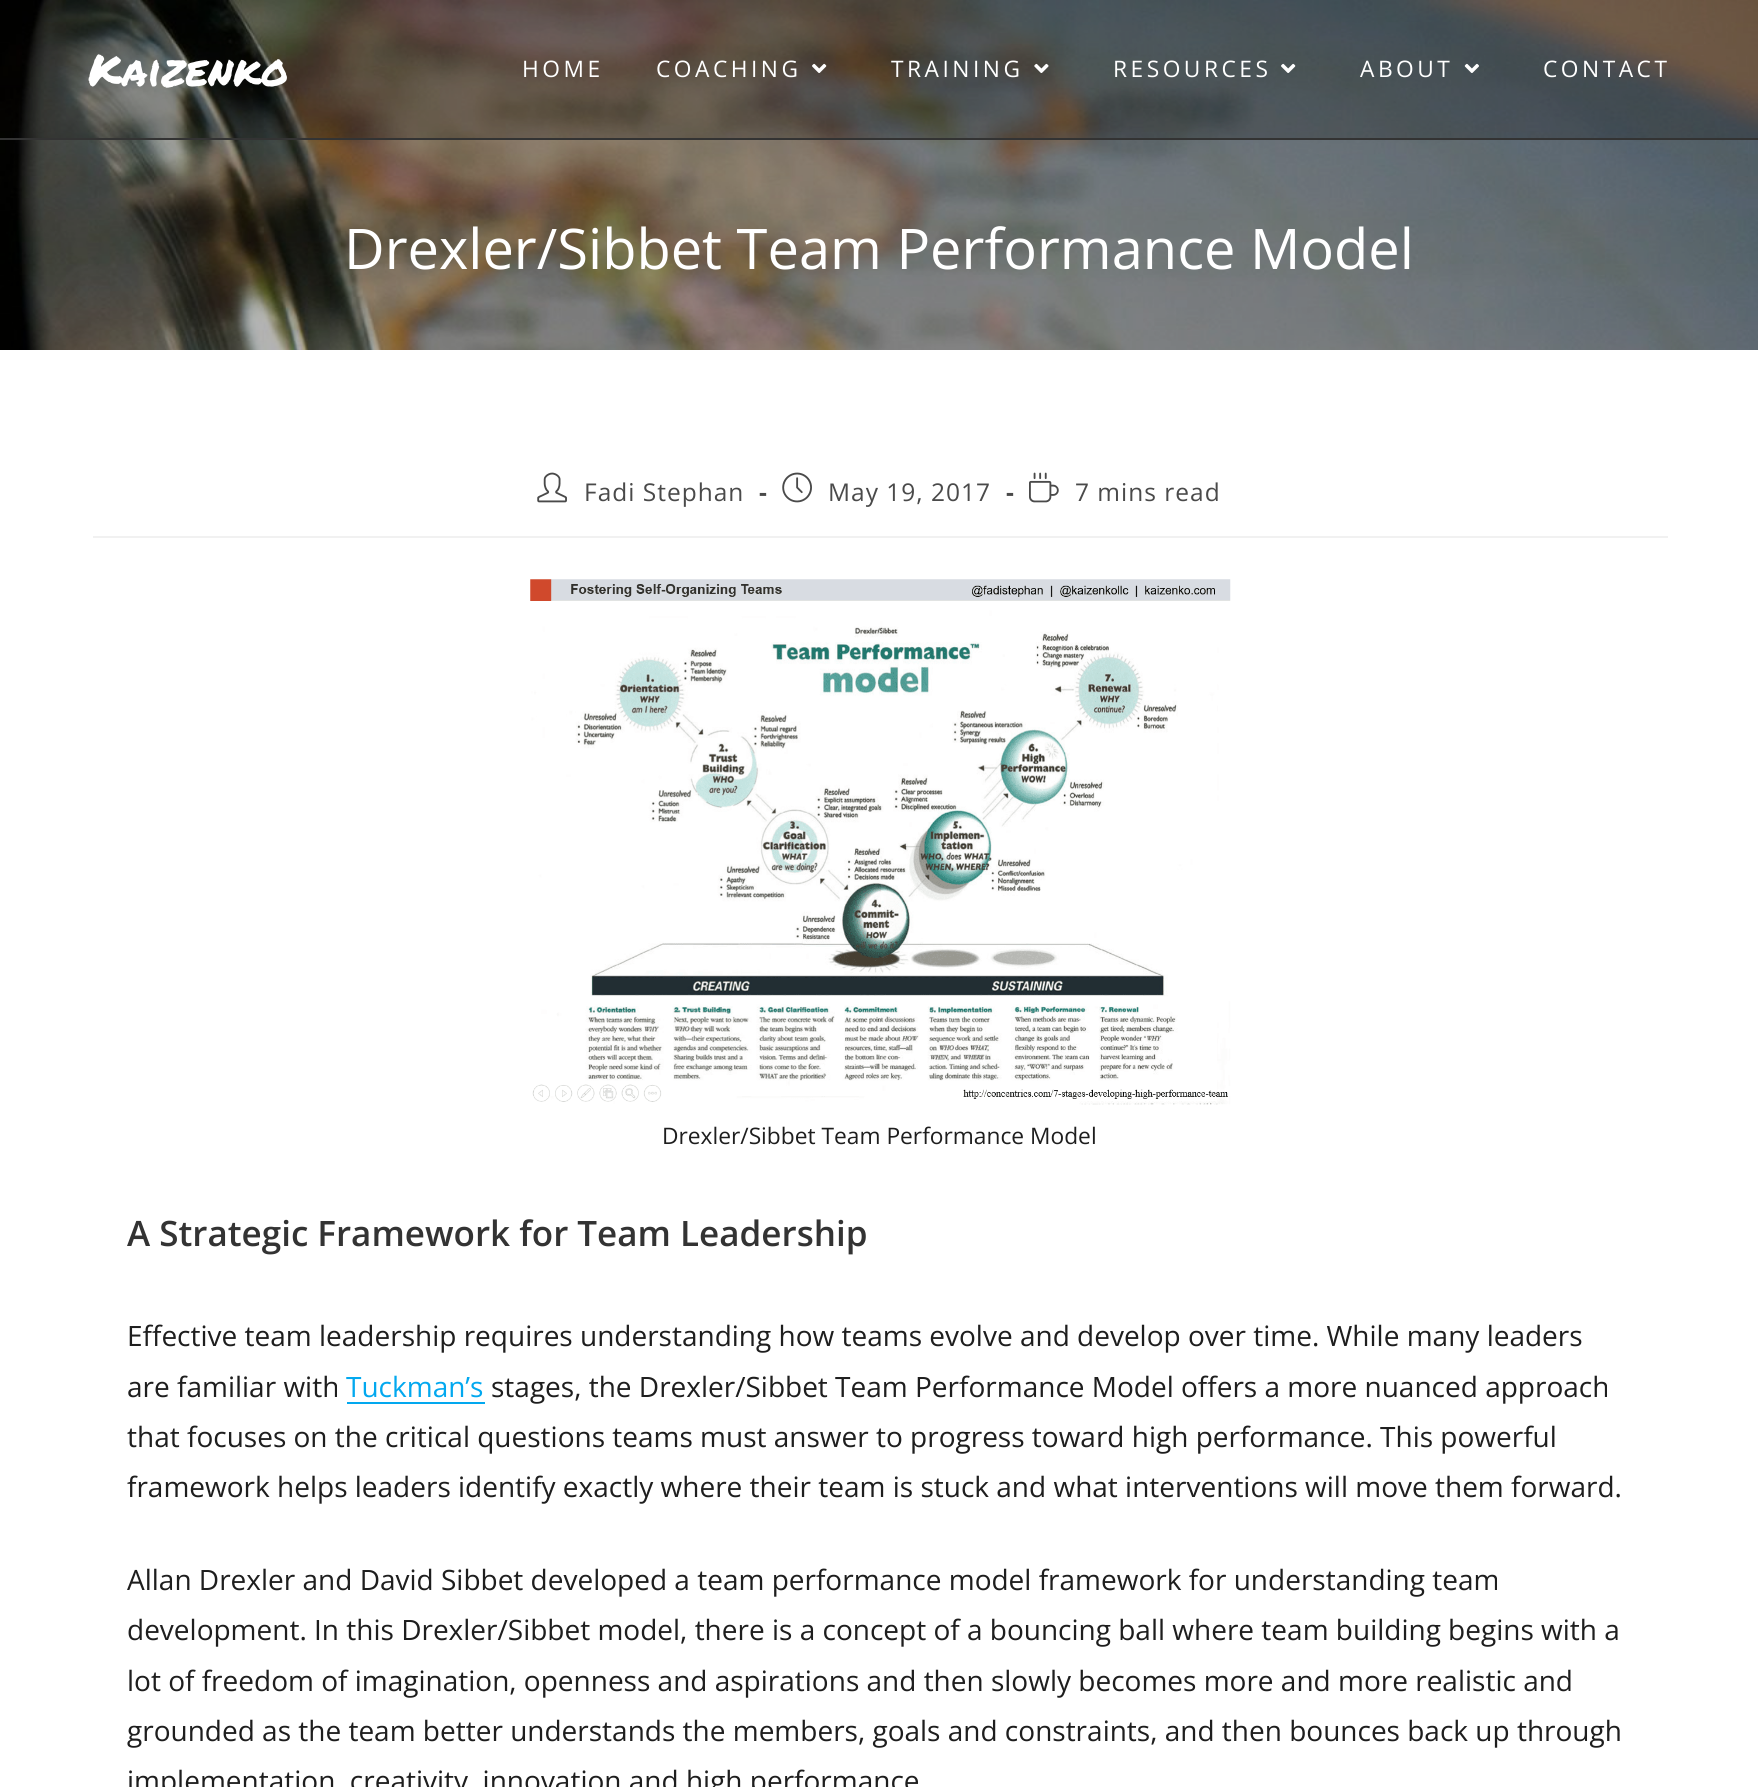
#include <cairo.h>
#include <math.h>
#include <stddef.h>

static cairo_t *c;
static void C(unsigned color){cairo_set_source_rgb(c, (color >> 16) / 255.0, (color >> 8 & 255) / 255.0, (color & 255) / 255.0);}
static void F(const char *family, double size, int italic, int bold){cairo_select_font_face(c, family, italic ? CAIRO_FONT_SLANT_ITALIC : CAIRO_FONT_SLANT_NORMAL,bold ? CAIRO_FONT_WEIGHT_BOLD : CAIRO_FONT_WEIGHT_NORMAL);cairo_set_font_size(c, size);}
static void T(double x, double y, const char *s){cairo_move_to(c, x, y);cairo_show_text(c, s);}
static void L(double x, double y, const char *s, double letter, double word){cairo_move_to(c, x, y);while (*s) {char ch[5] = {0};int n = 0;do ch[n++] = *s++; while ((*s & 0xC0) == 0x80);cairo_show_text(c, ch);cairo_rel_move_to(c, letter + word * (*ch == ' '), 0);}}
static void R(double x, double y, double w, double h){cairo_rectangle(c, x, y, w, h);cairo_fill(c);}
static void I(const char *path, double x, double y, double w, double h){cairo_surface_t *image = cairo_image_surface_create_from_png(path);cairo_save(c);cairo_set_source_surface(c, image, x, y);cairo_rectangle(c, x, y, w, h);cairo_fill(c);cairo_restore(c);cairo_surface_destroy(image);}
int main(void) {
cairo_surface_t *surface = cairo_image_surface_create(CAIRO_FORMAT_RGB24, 1758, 1787);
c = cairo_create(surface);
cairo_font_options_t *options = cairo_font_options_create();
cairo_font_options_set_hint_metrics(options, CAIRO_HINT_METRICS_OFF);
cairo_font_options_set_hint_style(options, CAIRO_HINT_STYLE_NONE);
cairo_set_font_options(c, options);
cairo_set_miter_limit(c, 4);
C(0xffffff);
cairo_paint(c);
I("5.png",0,0,1758,350);
cairo_set_source_rgba(c,0,0,0,0.23);
R(20,0,1738,138);
C(0x333333);
R(0,138,1758,2);
F("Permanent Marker",43.75,0,0);
C(0xffffff);
T(88,86,"Kaizenko");
F("Open Sans",22.75,0,0);
L(522,77,"HOME",3.5,0);
L(656,77,"COACHING",3.5,0);
I("1.png",812,63,15,10);
L(891,77,"TRAINING",3.5,0);
I("2.png",1034,63,15,10);
L(1113,77,"RESOURCES",3.5,0);
I("3.png",1281,63,15,10);
L(1360,77,"ABOUT",3.5,0);
I("4.png",1464,63,15,10);
L(1543,77,"CONTACT",3.5,0);
F("Open Sans",56,0,0);
T(344,269,"Drexler/Sibbet Team Performance Model");
C(0xf1f1f1);
R(93,536,1575,2);
I("6.png",537,472,30,31);
F("Open Sans",24.5,0,0);
C(0x4a4a4a);
L(584,501,"Fadi Stephan",1,0);
F("Open Sans",24.5,0,1);
L(759,501,"-",1,0);
I("7.png",782,472,30,31);
F("Open Sans",24.5,0,0);
L(828,501,"May 19, 2017",1,0);
F("Open Sans",24.5,0,1);
L(1006,501,"-",1,0);
I("8.png",1029,472,30,31);
F("Open Sans",24.5,0,0);
L(1075,501,"7 mins read",1,0);
I("9.png",530,579,701,526);
F("Open Sans",22.75,0,0);
C(0x1e1e1e);
T(662,1144,"Drexler/Sibbet Team Performance Model");
F("Open Sans SemiBold",35,0,0);
C(0x333333);
T(127,1246,"A Strategic Framework for Team Leadership");
F("Open Sans",28,0,0);
C(0x1e1e1e);
T(127,1346,"Effective team leadership requires understanding how teams evolve and develop over time. While many leaders");
T(127,1397,"are familiar with");
C(0x02a8ef);
T(346,1397,"Tuckman’s");
R(347,1402,138,2);
C(0x1e1e1e);
T(491,1397,"stages, the Drexler/Sibbet Team Performance Model offers a more nuanced approach");
T(127,1447,"that focuses on the critical questions teams must answer to progress toward high performance. This powerful");
T(127,1497,"framework helps leaders identify exactly where their team is stuck and what interventions will move them forward.");
T(127,1590,"Allan Drexler and David Sibbet developed a team performance model framework for understanding team");
T(127,1640,"development. In this Drexler/Sibbet model, there is a concept of a bouncing ball where team building begins with a");
T(127,1691,"lot of freedom of imagination, openness and aspirations and then slowly becomes more and more realistic and");
T(127,1741,"grounded as the team better understands the members, goals and constraints, and then bounces back up through");
T(127,1791,"implementation, creativity, innovation and high performance");
cairo_surface_write_to_png(surface, "o.png");
cairo_font_options_destroy(options);
cairo_destroy(c);
cairo_surface_destroy(surface);
return 0;
}
